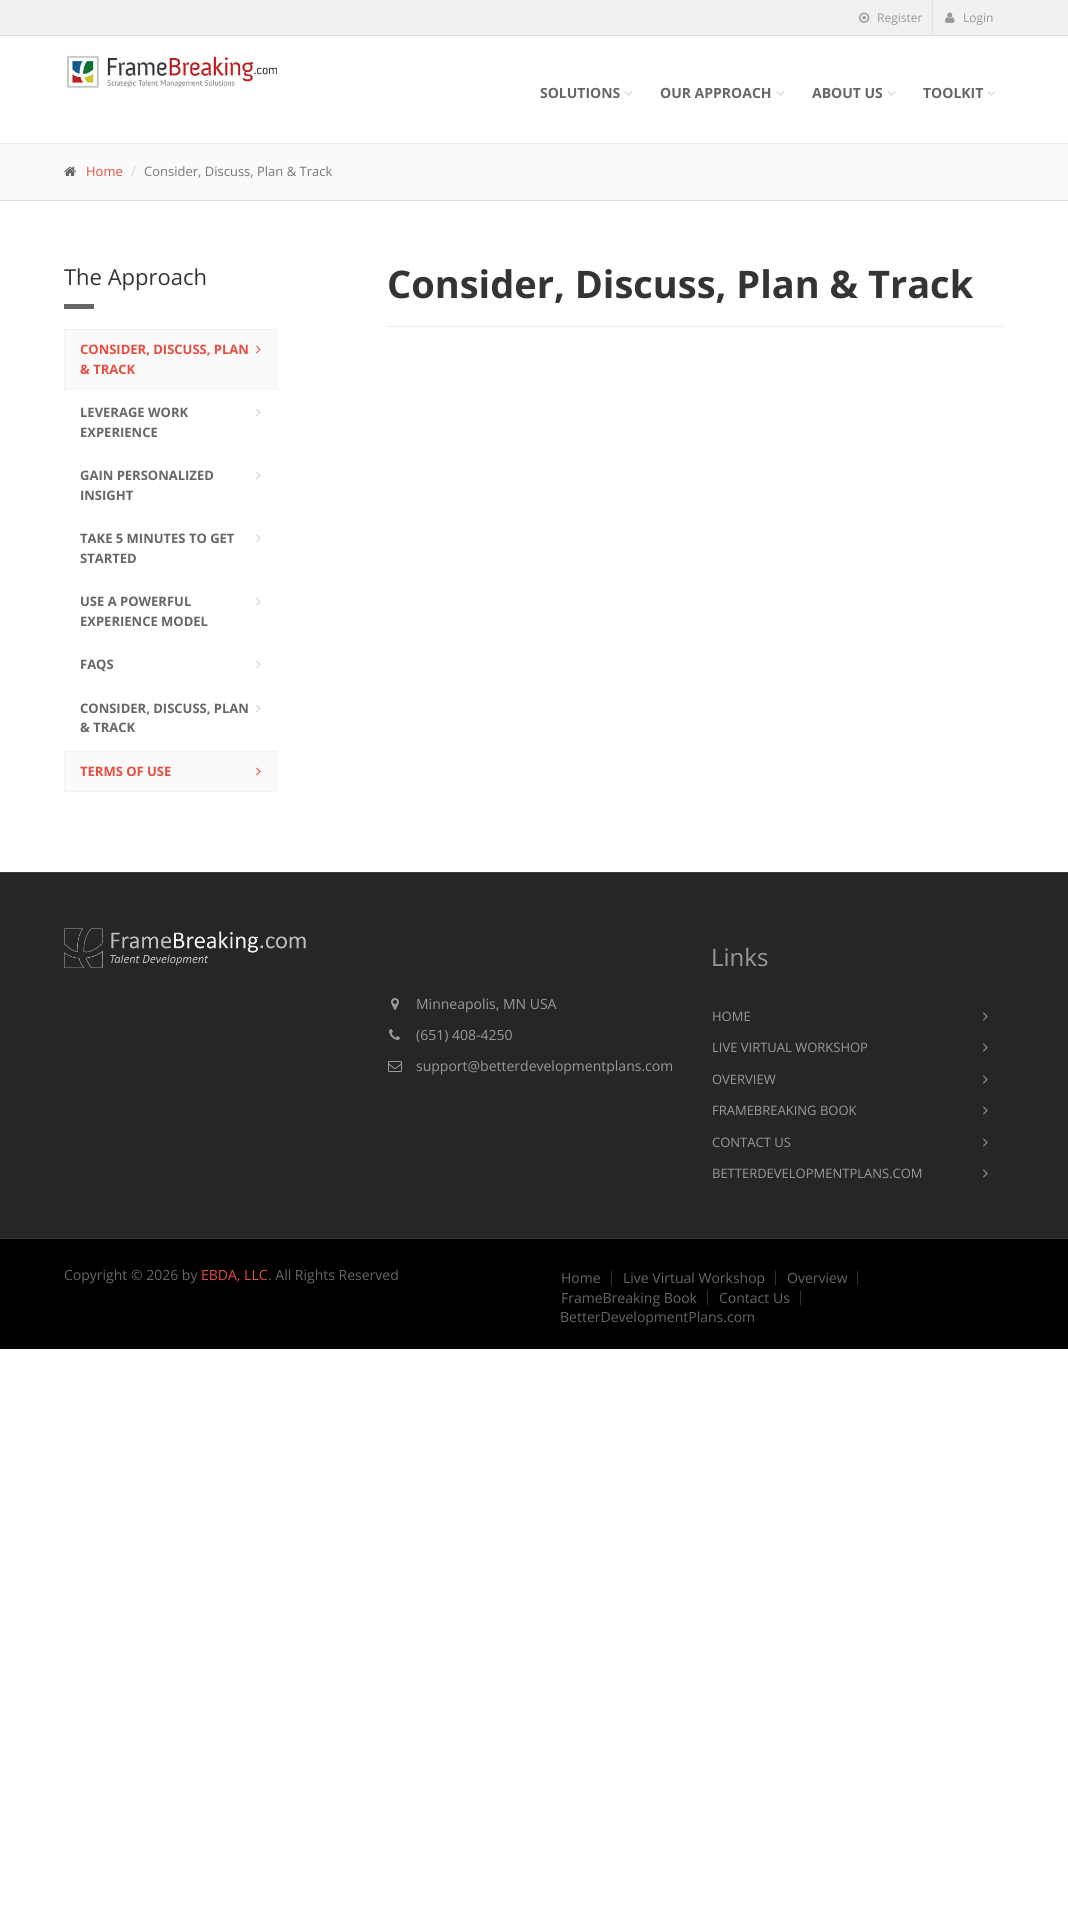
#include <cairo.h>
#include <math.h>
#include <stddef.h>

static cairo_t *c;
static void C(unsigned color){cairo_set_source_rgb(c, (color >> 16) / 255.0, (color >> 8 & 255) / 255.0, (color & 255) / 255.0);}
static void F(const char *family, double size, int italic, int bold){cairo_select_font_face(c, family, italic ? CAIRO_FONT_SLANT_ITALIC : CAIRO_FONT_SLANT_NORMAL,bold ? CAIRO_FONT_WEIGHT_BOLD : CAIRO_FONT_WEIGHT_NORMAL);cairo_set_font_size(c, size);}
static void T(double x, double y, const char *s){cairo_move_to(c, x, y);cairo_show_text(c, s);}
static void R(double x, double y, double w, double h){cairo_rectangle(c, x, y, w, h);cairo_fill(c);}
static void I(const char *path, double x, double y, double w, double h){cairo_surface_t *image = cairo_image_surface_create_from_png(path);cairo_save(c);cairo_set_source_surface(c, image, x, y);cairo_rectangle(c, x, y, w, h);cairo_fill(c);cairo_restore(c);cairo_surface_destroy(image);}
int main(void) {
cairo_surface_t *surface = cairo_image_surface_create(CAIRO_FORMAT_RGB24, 1068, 1926);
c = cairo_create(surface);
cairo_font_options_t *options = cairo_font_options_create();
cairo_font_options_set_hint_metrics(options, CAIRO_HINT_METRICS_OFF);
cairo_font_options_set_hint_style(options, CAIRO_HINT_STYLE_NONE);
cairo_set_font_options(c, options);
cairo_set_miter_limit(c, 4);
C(0xffffff);
cairo_paint(c);
C(0xf1f1f1);
R(0,0,1068,35);
C(0xdadada);
R(0,35,1068,1);
C(0xe3e3e3);
cairo_new_path(c);
cairo_move_to(c,933,0);
cairo_line_to(c,933,35);
cairo_line_to(c,932,34);
cairo_line_to(c,932,1);
cairo_close_path(c);
cairo_fill(c);
I("1.png",859,12,11,11);
F("Open Sans",12,0,0);
C(0x999999);
T(877,22,"Register");
I("2.png",945,12,10,11);
T(963,22,"Login");
C(0xeaeaea);
R(0,143,1068,1);
I("3.png",66,56,211,32);
F("Open Sans",14,0,1);
C(0x666666);
T(540,98,"SOLUTIONS");
I("4.png",624,91,9,5);
T(660,98,"OUR APPROACH");
I("4.png",776,91,9,5);
T(812,98,"ABOUT US");
I("4.png",887,91,9,5);
T(923,98,"TOOLKIT");
I("4.png",987,91,9,5);
C(0xfafafa);
R(0,144,1068,56);
C(0xdadada);
R(0,200,1068,1);
I("5.png",64,166,12,10);
F("Open Sans",13,0,0);
C(0xe84c3d);
T(86,176,"Home");
C(0xcccccc);
T(131,176,"/");
C(0x777777);
T(144,176,"Consider, Discuss, Plan & Track");
F("Open Sans",22,0,0);
C(0x343434);
T(64,285,"The Approach");
C(0x666666);
R(64,304,30,5);
C(0xfafafa);
cairo_rectangle(c,64.5,329.5,212,60);
cairo_fill_preserve(c);
C(0xf3f3f3);
cairo_set_line_width(c,1);
cairo_stroke(c);
F("Open Sans",13,0,1);
C(0xe84c3d);
T(80,354,"CONSIDER, DISCUSS, PLAN");
I("6.png",256,345,5,9);
T(80,374,"& TRACK");
C(0x666666);
T(80,417,"LEVERAGE WORK");
I("7.png",256,408,5,9);
T(80,437,"EXPERIENCE");
T(80,480,"GAIN PERSONALIZED");
I("7.png",256,471,5,9);
T(80,500,"INSIGHT");
T(80,543,"TAKE 5 MINUTES TO GET");
I("7.png",256,534,5,9);
T(80,563,"STARTED");
T(80,606,"USE A POWERFUL");
I("7.png",256,597,5,9);
T(80,626,"EXPERIENCE MODEL");
T(80,669,"FAQS");
I("7.png",256,660,5,9);
T(80,713,"CONSIDER, DISCUSS, PLAN");
I("7.png",256,704,5,9);
T(80,732,"& TRACK");
C(0xfafafa);
cairo_rectangle(c,64.5,751.5,212,40);
cairo_fill_preserve(c);
C(0xf3f3f3);
cairo_stroke(c);
C(0xe84c3d);
T(80,776,"TERMS OF USE");
I("6.png",256,767,5,9);
F("Open Sans",38,0,1);
C(0x343434);
T(387,298,"Consider, Discuss, Plan & Track");
C(0xeeeeee);
R(387,326,617,1);
C(0x262626);
R(0,873,1068,365);
C(0x3a3a3a);
R(0,872,1068,1);
C(0x333333);
R(0,1238,1068,1);
I("8.png",64,928,242,40);
I("9.png",391,998,8,12);
F("Open Sans",14,0,0);
C(0x999999);
T(416,1009,"Minneapolis, MN USA");
I("10.png",389,1029,11,11);
T(416,1040,"(651) 408-4250");
I("11.png",388,1061,14,11);
T(416,1071,"support@betterdevelopmentplans.com");
F("Open Sans",24,0,0);
T(711,966,"Links");
F("Open Sans",13,0,0);
T(712,1021,"HOME");
I("12.png",983,1012,5,9);
T(712,1052,"LIVE VIRTUAL WORKSHOP");
I("12.png",983,1043,5,9);
T(712,1084,"OVERVIEW");
I("12.png",983,1075,5,9);
T(712,1115,"FRAMEBREAKING BOOK");
I("12.png",983,1106,5,9);
T(712,1147,"CONTACT US");
I("12.png",983,1138,5,9);
T(712,1178,"BETTERDEVELOPMENTPLANS.COM");
I("12.png",983,1169,5,9);
C(0x000000);
R(0,1239,1068,110);
F("Open Sans",14,0,0);
C(0x666666);
T(64,1280,"Copyright © 2026 by");
C(0xe84c3d);
T(201,1280,"EBDA, LLC");
C(0x666666);
T(268,1280,". All Rights Reserved");
C(0x333333);
cairo_new_path(c);
cairo_move_to(c,612,1270);
cairo_line_to(c,612,1286);
cairo_line_to(c,611,1285);
cairo_line_to(c,611,1271);
cairo_close_path(c);
cairo_fill(c);
C(0x666666);
T(561,1283,"Home");
C(0x333333);
cairo_new_path(c);
cairo_move_to(c,776,1270);
cairo_line_to(c,776,1286);
cairo_line_to(c,775,1285);
cairo_line_to(c,775,1271);
cairo_close_path(c);
cairo_fill(c);
C(0x666666);
T(623,1283,"Live Virtual Workshop");
C(0x333333);
cairo_new_path(c);
cairo_move_to(c,858,1270);
cairo_line_to(c,858,1286);
cairo_line_to(c,857,1285);
cairo_line_to(c,857,1271);
cairo_close_path(c);
cairo_fill(c);
C(0x666666);
T(787,1283,"Overview");
C(0x333333);
cairo_new_path(c);
cairo_move_to(c,708,1290);
cairo_line_to(c,708,1306);
cairo_line_to(c,707,1305);
cairo_line_to(c,707,1291);
cairo_close_path(c);
cairo_fill(c);
C(0x666666);
T(561,1303,"FrameBreaking Book");
C(0x333333);
cairo_new_path(c);
cairo_move_to(c,801,1290);
cairo_line_to(c,801,1306);
cairo_line_to(c,800,1305);
cairo_line_to(c,800,1291);
cairo_close_path(c);
cairo_fill(c);
C(0x666666);
T(719,1303,"Contact Us");
T(560,1322,"BetterDevelopmentPlans.com");
cairo_surface_write_to_png(surface, "o.png");
cairo_font_options_destroy(options);
cairo_destroy(c);
cairo_surface_destroy(surface);
return 0;
}
